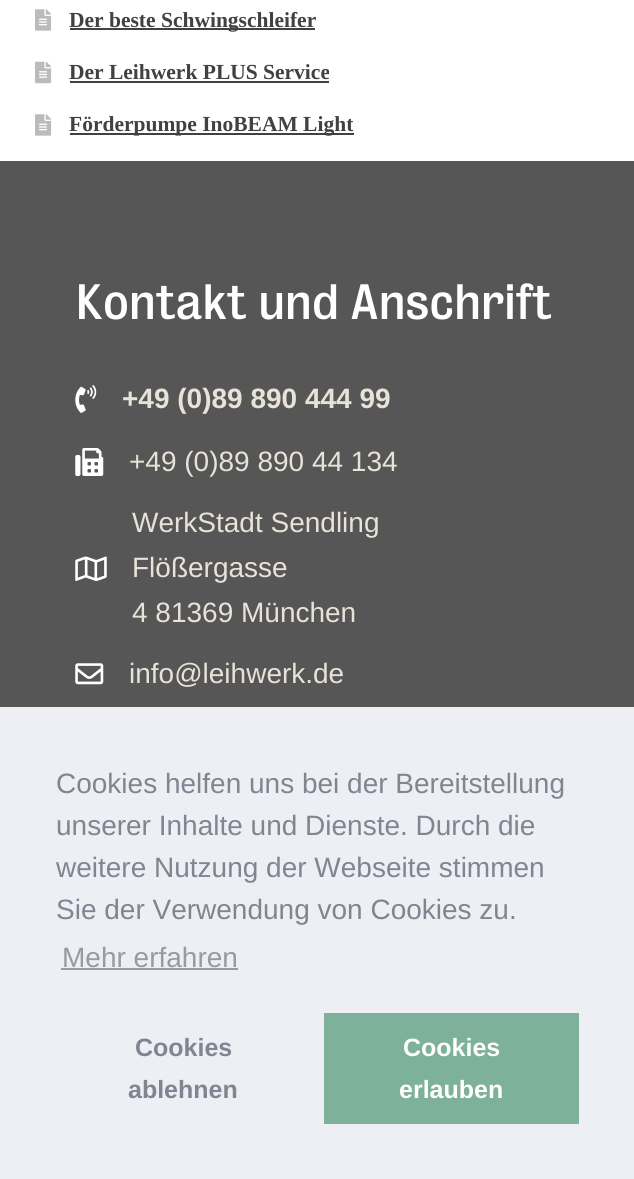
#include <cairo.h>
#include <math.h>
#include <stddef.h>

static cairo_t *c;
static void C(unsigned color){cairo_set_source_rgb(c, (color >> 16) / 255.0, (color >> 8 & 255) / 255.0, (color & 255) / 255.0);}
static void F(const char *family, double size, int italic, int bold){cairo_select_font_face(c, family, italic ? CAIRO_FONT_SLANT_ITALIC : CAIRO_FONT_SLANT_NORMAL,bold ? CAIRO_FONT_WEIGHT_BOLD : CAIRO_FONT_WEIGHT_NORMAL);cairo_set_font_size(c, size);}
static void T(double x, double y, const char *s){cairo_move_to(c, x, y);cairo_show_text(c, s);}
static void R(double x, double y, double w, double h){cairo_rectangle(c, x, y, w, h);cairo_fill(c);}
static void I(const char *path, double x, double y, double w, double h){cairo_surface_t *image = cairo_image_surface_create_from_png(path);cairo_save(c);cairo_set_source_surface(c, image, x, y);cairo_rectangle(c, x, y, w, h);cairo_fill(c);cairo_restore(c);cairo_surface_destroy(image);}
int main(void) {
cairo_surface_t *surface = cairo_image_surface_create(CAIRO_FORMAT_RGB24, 634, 1179);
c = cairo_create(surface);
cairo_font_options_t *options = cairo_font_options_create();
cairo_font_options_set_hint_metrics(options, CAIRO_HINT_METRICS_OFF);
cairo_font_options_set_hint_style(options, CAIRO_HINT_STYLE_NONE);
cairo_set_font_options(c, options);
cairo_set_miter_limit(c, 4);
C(0xffffff);
cairo_paint(c);
I("1.png",35,9,17,22);
C(0x414140);
R(70,28,245,2);
F("Liberation Serif",21.5,0,1);
T(69,27,"Der beste Schwingschleifer");
I("2.png",35,61,17,23);
T(69,79,"Der Leihwerk PLUS Service");
R(70,81,259,2);
I("1.png",35,114,17,22);
R(70,133,284,2);
T(69,131,"Förderpumpe InoBEAM Light");
C(0x575657);
R(0,161,634,546);
F("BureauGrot",45.25,0,0);
C(0xffffff);
T(75,319,"Kontakt und Anschrift");
I("3.png",75,385,22,28);
F("Liberation Sans",28,0,1);
C(0xe8e3d8);
T(122,408,"+49 (0)89 890 444 99");
I("4.png",75,448,29,28);
F("Liberation Sans",28,0,0);
T(129,471,"+49 (0)89 890 44 134");
I("5.png",75,556,32,25);
T(132,532,"WerkStadt Sendling");
T(132,577,"Flößergasse");
T(132,622,"4 81369 München");
I("6.png",75,663,29,22);
T(129,683,"info@leihwerk.de");
C(0xedeff5);
R(0,707,634,472);
C(0x838391);
T(56,793,"Cookies helfen uns bei der Bereitstellung");
T(56,835,"unserer Inhalte und Dienste. Durch die");
T(56,877,"weitere Nutzung der Webseite stimmen");
T(56,919,"Sie der Verwendung von Cookies zu.");
C(0x9899a5);
T(62,967,"Mehr erfahren");
R(61,968,177,2);
F("Liberation Sans",25,0,1);
C(0x838391);
T(135,1056,"Cookies");
T(128,1098,"ablehnen");
C(0x7eb199);
R(324,1013,255,111);
C(0xffffff);
T(403,1056,"Cookies");
T(399,1098,"erlauben");
cairo_surface_write_to_png(surface, "o.png");
cairo_font_options_destroy(options);
cairo_destroy(c);
cairo_surface_destroy(surface);
return 0;
}
